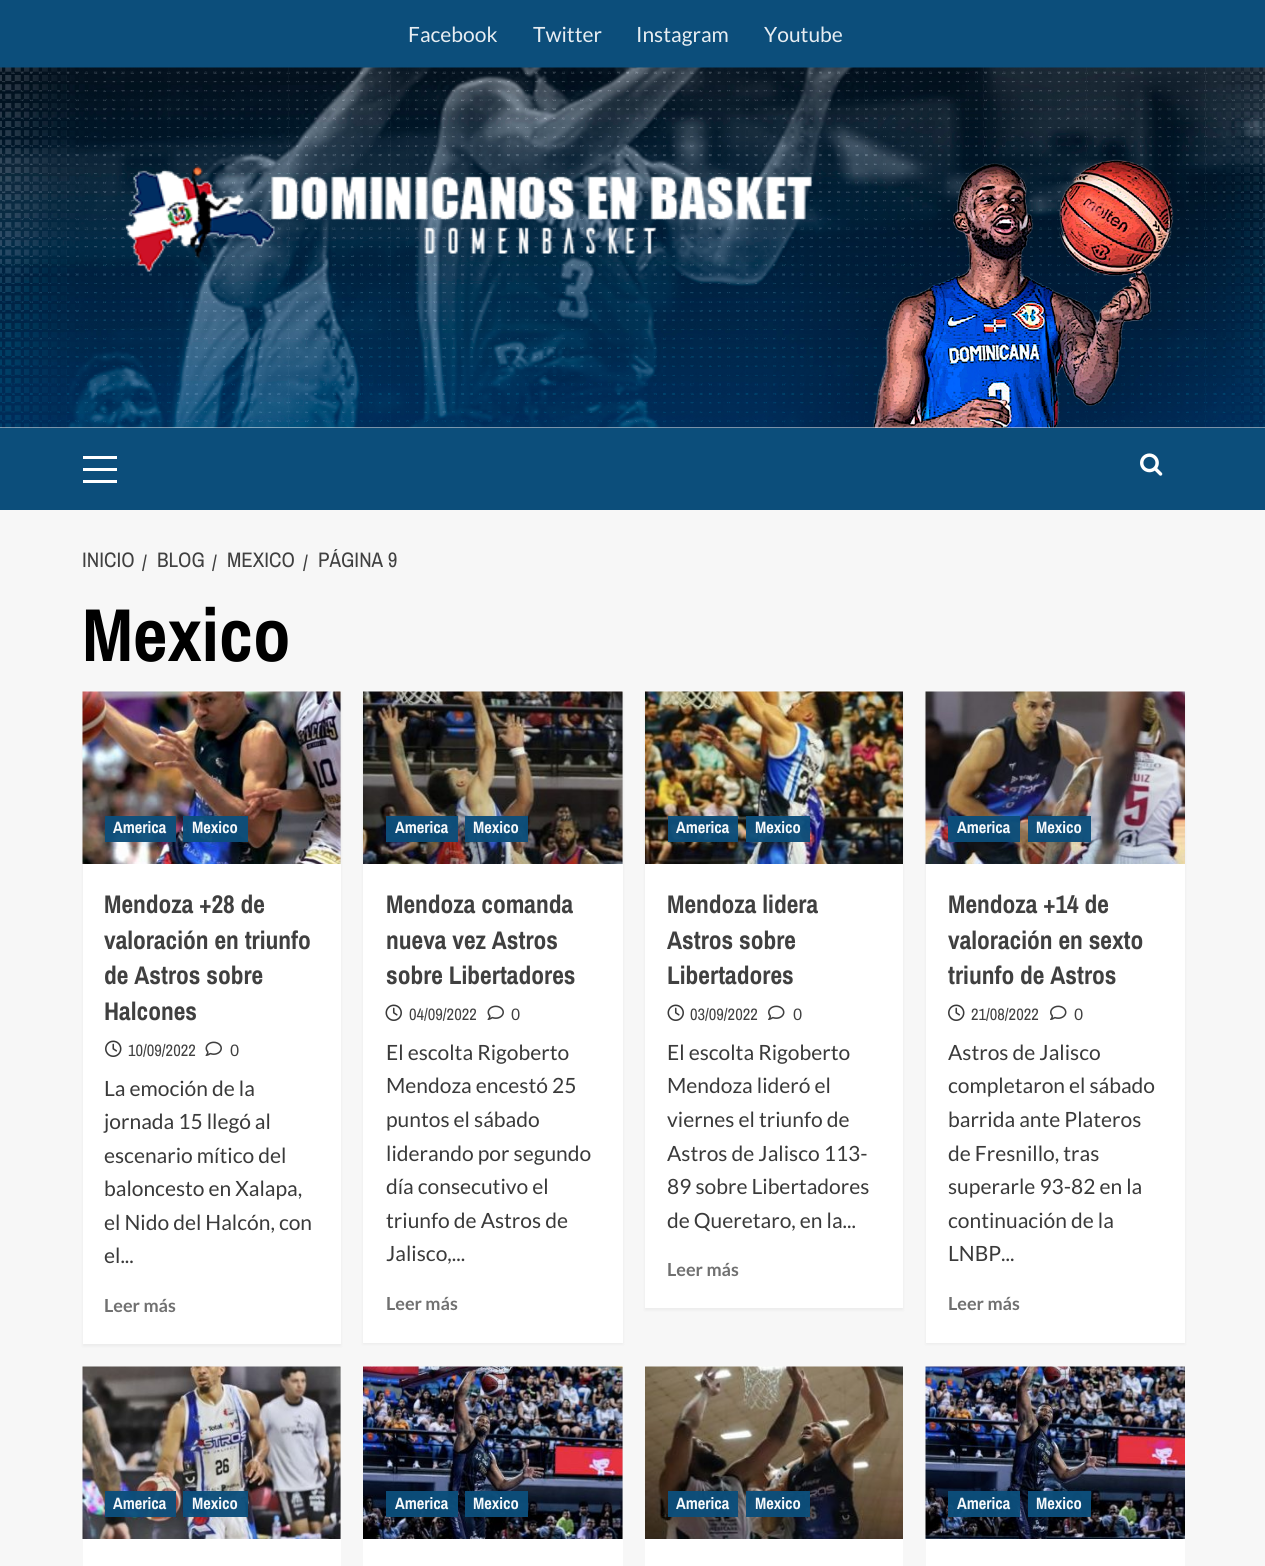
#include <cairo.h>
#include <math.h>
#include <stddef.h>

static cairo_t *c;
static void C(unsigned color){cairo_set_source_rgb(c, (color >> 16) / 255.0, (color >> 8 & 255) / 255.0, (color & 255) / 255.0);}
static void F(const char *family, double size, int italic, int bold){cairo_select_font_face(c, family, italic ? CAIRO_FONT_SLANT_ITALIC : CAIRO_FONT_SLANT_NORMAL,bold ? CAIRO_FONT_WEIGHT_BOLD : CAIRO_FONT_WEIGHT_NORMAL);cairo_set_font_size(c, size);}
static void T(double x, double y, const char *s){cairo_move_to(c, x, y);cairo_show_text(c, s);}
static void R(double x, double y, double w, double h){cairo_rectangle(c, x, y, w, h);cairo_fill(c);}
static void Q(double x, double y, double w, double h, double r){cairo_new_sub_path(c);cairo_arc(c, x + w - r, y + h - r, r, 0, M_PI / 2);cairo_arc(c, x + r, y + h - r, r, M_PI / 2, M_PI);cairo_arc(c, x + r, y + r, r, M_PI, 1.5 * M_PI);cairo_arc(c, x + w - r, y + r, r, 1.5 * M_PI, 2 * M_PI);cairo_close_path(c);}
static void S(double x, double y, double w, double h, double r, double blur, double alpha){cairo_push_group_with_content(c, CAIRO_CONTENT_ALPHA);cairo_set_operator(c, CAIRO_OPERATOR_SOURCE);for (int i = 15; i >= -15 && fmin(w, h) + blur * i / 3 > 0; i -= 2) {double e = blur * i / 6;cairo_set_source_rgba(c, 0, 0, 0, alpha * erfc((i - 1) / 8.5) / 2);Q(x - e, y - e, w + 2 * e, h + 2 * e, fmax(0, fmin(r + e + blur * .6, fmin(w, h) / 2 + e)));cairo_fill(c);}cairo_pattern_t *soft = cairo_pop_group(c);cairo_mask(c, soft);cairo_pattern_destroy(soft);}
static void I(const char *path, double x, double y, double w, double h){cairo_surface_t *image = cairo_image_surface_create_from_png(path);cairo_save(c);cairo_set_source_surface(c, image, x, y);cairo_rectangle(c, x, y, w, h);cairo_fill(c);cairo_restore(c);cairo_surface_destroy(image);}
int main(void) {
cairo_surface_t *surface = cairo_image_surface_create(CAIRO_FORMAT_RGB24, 1265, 1566);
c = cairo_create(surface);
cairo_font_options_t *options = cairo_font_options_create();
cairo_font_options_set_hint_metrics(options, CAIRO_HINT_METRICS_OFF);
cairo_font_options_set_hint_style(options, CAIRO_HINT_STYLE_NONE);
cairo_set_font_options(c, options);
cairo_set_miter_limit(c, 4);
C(0xf7f7f7);
cairo_paint(c);
C(0x0c4e7b);
R(0,0,1265,68);
F("Lato",21,0,0);
C(0xe7edf2);
T(408,42,"Facebook");
T(533,42,"Twitter");
T(636,42,"Instagram");
T(764,42,"Youtube");
I("1.png",0,67,1265,361);
I("2.png",125,166,687,106);
C(0x0c4e7b);
R(0,428,1265,82);
C(0xffffff);
R(83,468,34,3);
R(83,456,34,3);
R(83,480,34,3);
I("3.png",1140,453,23,23);
F("Archivo Narrow",21,0,0);
C(0x404040);
T(82,567,"INICIO");
T(142,570,"/");
T(157,567,"BLOG");
T(212,570,"/");
T(227,567,"MEXICO");
T(303,570,"/");
T(318,567,"PÁGINA 9");
F("Archivo Narrow",75,0,1);
C(0x000000);
T(82,661,"Mexico");
C(0x000000);
S(83,693,258,653,0,1.5,.05);
C(0xffffff);
R(83,864,258,480);
C(0xd8d8d8);
R(340,692,1,172);
I("4.png",82,691,259,173);
cairo_set_source_rgba(c,0.047,0.306,0.482,0.96);
R(105,816,71,26);
F("Archivo Narrow",16.5,0,1);
C(0xf5f8fa);
T(113,833,"America");
cairo_set_source_rgba(c,0.047,0.306,0.482,0.96);
R(183,816,65,26);
C(0xf5f8fa);
T(192,833,"Mexico");
F("Archivo Narrow",25.5,0,1);
C(0x404040);
T(104,913,"Mendoza +28 de");
T(104,949,"valoración en triunfo");
T(104,984,"de Astros sobre");
T(104,1020,"Halcones");
I("5.png",105,1040,17,17);
F("Archivo Narrow",16.5,0,0);
T(128,1056,"10/09/2022");
I("6.png",205,1041,17,15);
F("Liberation Sans",16.5,0,0);
T(230,1056,"0");
F("Lato",21,0,0);
C(0x3a3a3a);
T(104,1096,"La emoción de la");
T(104,1129,"jornada 15 llegó al");
T(104,1163,"escenario mítico del");
T(104,1196,"baloncesto en Xalapa,");
T(104,1230,"el Nido del Halcón, con");
T(104,1263,"el...");
F("Lato",18,0,1);
C(0x707070);
T(104,1312,"Leer más");
C(0x000000);
S(363,693,260,651,0,1.5,.05);
C(0xffffff);
R(363,864,260,479);
C(0xd8d8d8);
R(622,692,1,172);
I("7.png",363,691,260,173);
cairo_set_source_rgba(c,0.047,0.306,0.482,0.96);
R(386,816,72,26);
F("Archivo Narrow",16.5,0,1);
C(0xf5f8fa);
T(395,833,"America");
cairo_set_source_rgba(c,0.047,0.306,0.482,0.96);
R(465,816,63,26);
C(0xf5f8fa);
T(473,833,"Mexico");
F("Archivo Narrow",25.5,0,1);
C(0x404040);
T(386,913,"Mendoza comanda");
T(386,949,"nueva vez Astros");
T(386,984,"sobre Libertadores");
I("8.png",385,1004,17,17);
F("Archivo Narrow",16.5,0,0);
T(409,1020,"04/09/2022");
I("6.png",487,1005,17,15);
F("Liberation Sans",16.5,0,0);
T(511,1020,"0");
F("Lato",21,0,0);
C(0x3a3a3a);
T(386,1060,"El escolta Rigoberto");
T(386,1093,"Mendoza encestó 25");
T(386,1127,"puntos el sábado");
T(386,1161,"liderando por segundo");
T(386,1194,"día consecutivo el");
T(386,1228,"triunfo de Astros de");
T(386,1261,"Jalisco,...");
F("Lato",18,0,1);
C(0x707070);
T(386,1310,"Leer más");
C(0x000000);
S(645,693,258,617,0,1.5,.05);
C(0xffffff);
R(645,864,258,444);
I("9.png",645,691,258,173);
cairo_set_source_rgba(c,0.047,0.306,0.482,0.96);
R(668,816,70,26);
F("Archivo Narrow",16.5,0,1);
C(0xf5f8fa);
T(676,833,"America");
cairo_set_source_rgba(c,0.047,0.306,0.482,0.96);
R(746,816,64,26);
C(0xf5f8fa);
T(755,833,"Mexico");
F("Archivo Narrow",25.5,0,1);
C(0x404040);
T(667,913,"Mendoza lidera");
T(667,949,"Astros sobre");
T(667,984,"Libertadores");
I("8.png",667,1004,17,17);
F("Archivo Narrow",16.5,0,0);
T(690,1020,"03/09/2022");
I("10.png",768,1005,17,15);
F("Liberation Sans",16.5,0,0);
T(793,1020,"0");
F("Lato",21,0,0);
C(0x3a3a3a);
T(667,1060,"El escolta Rigoberto");
T(667,1093,"Mendoza lideró el");
T(667,1127,"viernes el triunfo de");
T(667,1161,"Astros de Jalisco 113-");
T(667,1194,"89 sobre Libertadores");
T(667,1228,"de Queretaro, en la...");
F("Lato",18,0,1);
C(0x707070);
T(667,1276,"Leer más");
C(0x000000);
S(926,693,259,651,0,1.5,.05);
C(0xffffff);
R(926,864,259,479);
I("11.png",925,691,260,173);
cairo_set_source_rgba(c,0.047,0.306,0.482,0.96);
R(948,816,72,26);
F("Archivo Narrow",16.5,0,1);
C(0xf5f8fa);
T(957,833,"America");
cairo_set_source_rgba(c,0.047,0.306,0.482,0.96);
R(1028,816,63,26);
C(0xf5f8fa);
T(1036,833,"Mexico");
F("Archivo Narrow",25.5,0,1);
C(0x404040);
T(948,913,"Mendoza +14 de");
T(948,949,"valoración en sexto");
T(948,984,"triunfo de Astros");
I("5.png",948,1004,17,17);
F("Archivo Narrow",16.5,0,0);
T(971,1020,"21/08/2022");
I("10.png",1050,1005,17,15);
F("Liberation Sans",16.5,0,0);
T(1074,1020,"0");
F("Lato",21,0,0);
C(0x3a3a3a);
T(948,1060,"Astros de Jalisco");
T(948,1093,"completaron el sábado");
T(948,1127,"barrida ante Plateros");
T(948,1161,"de Fresnillo, tras");
T(948,1194,"superarle 93-82 en la");
T(948,1228,"continuación de la");
T(948,1261,"LNBP...");
F("Lato",18,0,1);
C(0x707070);
T(948,1310,"Leer más");
C(0xffffff);
R(83,1539,258,27);
C(0xd8d8d8);
R(340,1367,1,172);
I("12.png",82,1366,259,173);
cairo_set_source_rgba(c,0.047,0.306,0.482,0.96);
R(105,1491,71,26);
F("Archivo Narrow",16.5,0,1);
C(0xf5f8fa);
T(113,1509,"America");
cairo_set_source_rgba(c,0.047,0.306,0.482,0.96);
R(183,1491,65,26);
C(0xf5f8fa);
T(192,1509,"Mexico");
C(0xffffff);
R(363,1539,260,27);
C(0xd8d8d8);
R(622,1367,1,172);
I("13.png",363,1366,260,173);
cairo_set_source_rgba(c,0.047,0.306,0.482,0.96);
R(386,1491,72,26);
C(0xf5f8fa);
T(395,1509,"America");
cairo_set_source_rgba(c,0.047,0.306,0.482,0.96);
R(465,1491,63,26);
C(0xf5f8fa);
T(473,1509,"Mexico");
C(0xffffff);
R(645,1539,258,27);
I("14.png",645,1366,258,173);
cairo_set_source_rgba(c,0.047,0.306,0.482,0.96);
R(668,1491,70,26);
C(0xf5f8fa);
T(676,1509,"America");
cairo_set_source_rgba(c,0.047,0.306,0.482,0.96);
R(746,1491,64,26);
C(0xf5f8fa);
T(755,1509,"Mexico");
C(0xffffff);
R(926,1539,259,27);
I("15.png",925,1366,260,173);
cairo_set_source_rgba(c,0.047,0.306,0.482,0.96);
R(948,1491,72,26);
C(0xf5f8fa);
T(957,1509,"America");
cairo_set_source_rgba(c,0.047,0.306,0.482,0.96);
R(1028,1491,63,26);
C(0xf5f8fa);
T(1036,1509,"Mexico");
cairo_surface_write_to_png(surface, "o.png");
cairo_font_options_destroy(options);
cairo_destroy(c);
cairo_surface_destroy(surface);
return 0;
}
